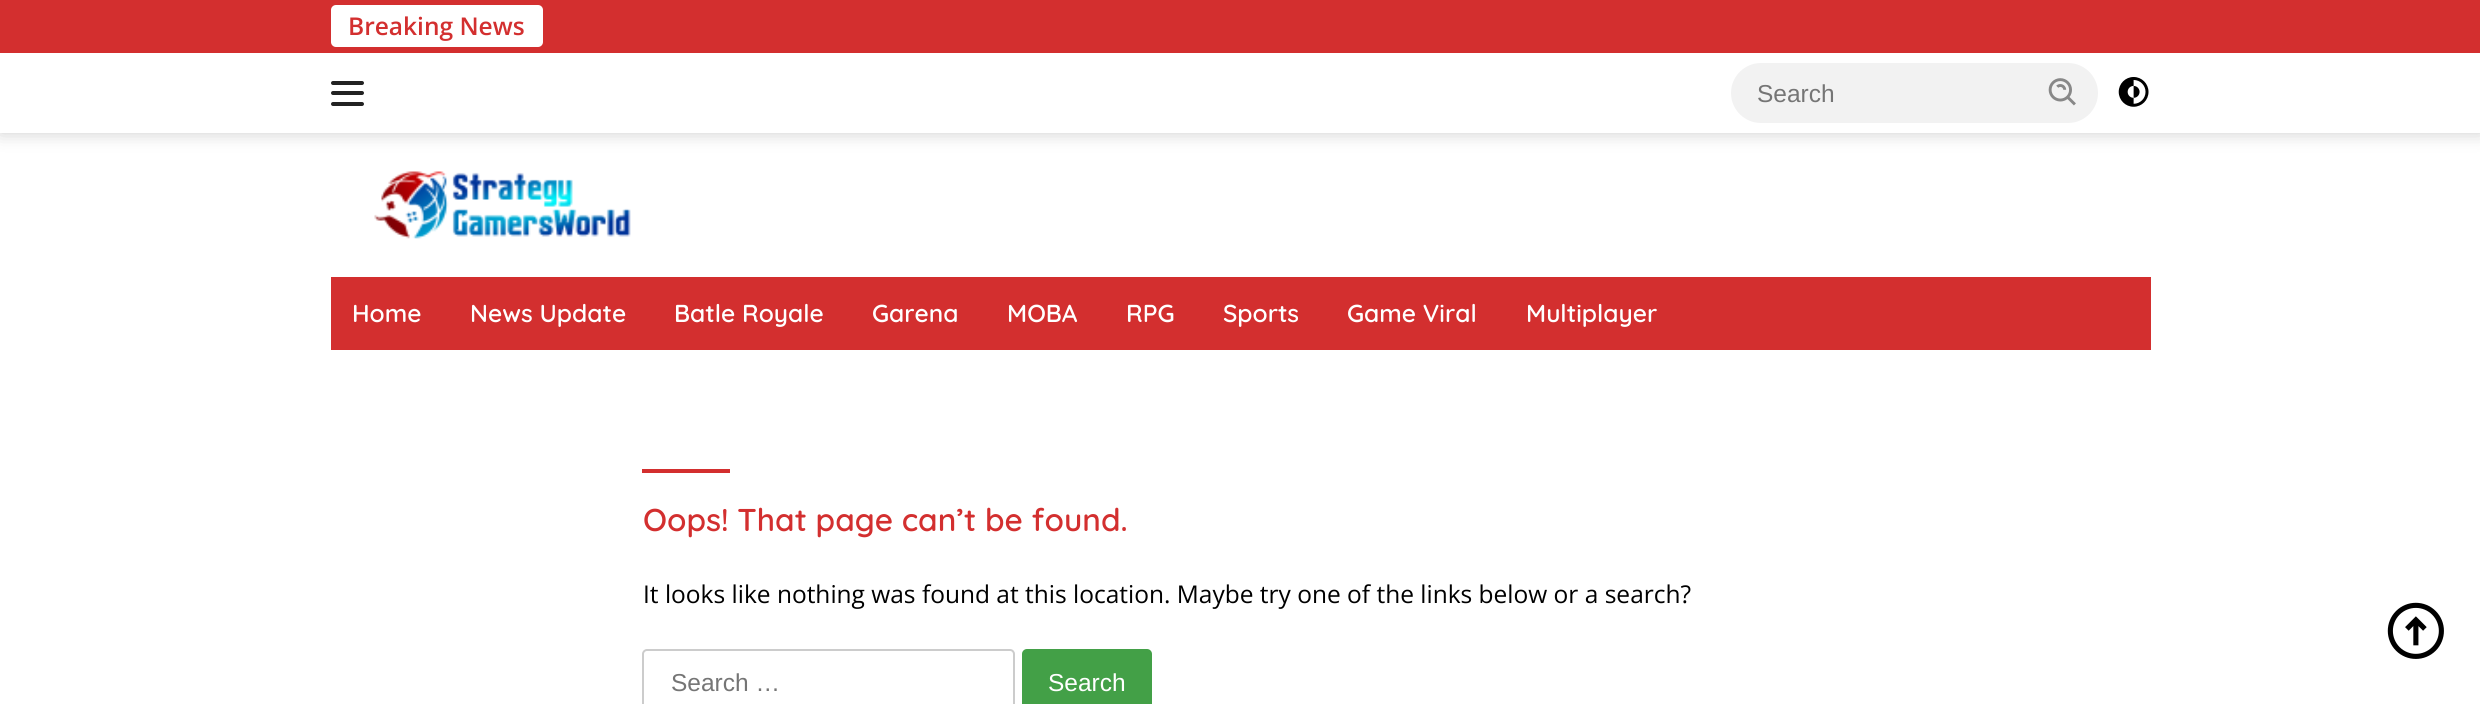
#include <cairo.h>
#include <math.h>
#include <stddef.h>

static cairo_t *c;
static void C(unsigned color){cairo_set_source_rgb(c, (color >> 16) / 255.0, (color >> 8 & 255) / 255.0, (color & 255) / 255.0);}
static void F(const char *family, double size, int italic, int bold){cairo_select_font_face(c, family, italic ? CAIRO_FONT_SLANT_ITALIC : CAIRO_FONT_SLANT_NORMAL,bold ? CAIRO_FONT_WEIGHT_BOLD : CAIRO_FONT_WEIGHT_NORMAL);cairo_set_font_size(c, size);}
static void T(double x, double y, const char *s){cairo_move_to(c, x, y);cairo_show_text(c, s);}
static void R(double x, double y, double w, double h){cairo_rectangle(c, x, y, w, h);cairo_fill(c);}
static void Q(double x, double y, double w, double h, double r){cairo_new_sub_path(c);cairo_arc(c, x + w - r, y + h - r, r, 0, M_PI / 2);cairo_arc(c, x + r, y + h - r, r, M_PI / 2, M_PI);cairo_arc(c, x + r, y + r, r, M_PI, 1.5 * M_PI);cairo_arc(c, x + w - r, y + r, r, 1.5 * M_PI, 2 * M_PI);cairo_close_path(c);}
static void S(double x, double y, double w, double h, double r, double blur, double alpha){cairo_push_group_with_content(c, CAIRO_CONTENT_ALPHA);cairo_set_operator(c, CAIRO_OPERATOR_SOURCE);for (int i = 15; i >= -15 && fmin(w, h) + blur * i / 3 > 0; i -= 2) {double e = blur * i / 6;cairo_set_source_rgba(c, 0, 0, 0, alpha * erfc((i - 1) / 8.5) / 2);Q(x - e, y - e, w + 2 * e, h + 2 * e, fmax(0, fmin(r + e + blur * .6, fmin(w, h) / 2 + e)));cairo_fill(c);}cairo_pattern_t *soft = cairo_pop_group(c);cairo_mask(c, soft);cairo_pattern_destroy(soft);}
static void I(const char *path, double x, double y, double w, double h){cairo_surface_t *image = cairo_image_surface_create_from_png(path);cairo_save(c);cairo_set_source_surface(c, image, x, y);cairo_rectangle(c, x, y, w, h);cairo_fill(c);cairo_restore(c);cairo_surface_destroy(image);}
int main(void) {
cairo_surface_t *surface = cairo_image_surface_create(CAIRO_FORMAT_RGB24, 2480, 704);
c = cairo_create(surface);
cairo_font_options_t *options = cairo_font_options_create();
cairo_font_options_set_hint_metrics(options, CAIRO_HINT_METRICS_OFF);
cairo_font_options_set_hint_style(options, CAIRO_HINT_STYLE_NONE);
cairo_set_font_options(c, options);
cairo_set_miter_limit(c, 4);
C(0xffffff);
cairo_paint(c);
C(0x000000);
S(0,0,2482,133,0,9,.2);
C(0xffffff);
R(0,53,2480,80);
C(0xd32f2f);
R(0,0,2480,53);
C(0xffffff);
Q(331,5,212,42,5);
cairo_fill(c);
F("Open Sans SemiBold",24.5,0,0);
C(0xd32f2f);
T(348,35,"Breaking News");
C(0x222222);
Q(331,81,33,4,2);
cairo_fill(c);
Q(331,91,33,4,2);
cairo_fill(c);
Q(331,102,33,4,2);
cairo_fill(c);
C(0xf2f2f2);
Q(1731,63,367,60,30);
cairo_fill(c);
F("Liberation Sans",24.5,0,0);
C(0x757575);
T(1757,102,"Search");
I("1.png",2048,78,28,28);
I("2.png",2118,77,31,30);
I("3.png",374,171,257,68);
C(0xd32f2f);
R(331,277,1820,73);
F("Quicksand SemiBold",24.5,0,0);
C(0xffffff);
T(352,322,"Home");
T(470,322,"News Update");
T(674,322,"Batle Royale");
T(872,322,"Garena");
T(1007,322,"MOBA");
T(1126,322,"RPG");
T(1223,322,"Sports");
T(1347,322,"Game Viral");
T(1526,322,"Multiplayer");
C(0xd32f2f);
R(642,469,88,4);
F("Quicksand SemiBold",31.5,0,0);
T(643,531,"Oops! That page can’t be found.");
F("Open Sans",24.5,0,0);
C(0x000000);
T(643,603,"It looks like nothing was found at this location. Maybe try one of the links below or a search?");
Q(643,650,371,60,4);
C(0xcccccc);
cairo_stroke(c);
F("Liberation Sans",24.5,0,0);
C(0x757575);
T(671,691,"Search …");
C(0x43a047);
Q(1022,649,130,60,5);
cairo_fill(c);
C(0xffffff);
T(1048,691,"Search");
I("4.png",2387,602,57,57);
cairo_surface_write_to_png(surface, "o.png");
cairo_font_options_destroy(options);
cairo_destroy(c);
cairo_surface_destroy(surface);
return 0;
}
